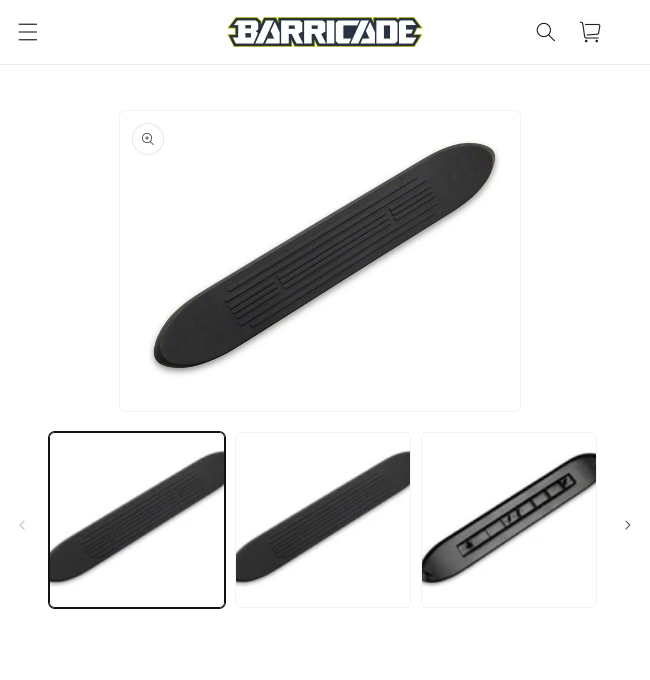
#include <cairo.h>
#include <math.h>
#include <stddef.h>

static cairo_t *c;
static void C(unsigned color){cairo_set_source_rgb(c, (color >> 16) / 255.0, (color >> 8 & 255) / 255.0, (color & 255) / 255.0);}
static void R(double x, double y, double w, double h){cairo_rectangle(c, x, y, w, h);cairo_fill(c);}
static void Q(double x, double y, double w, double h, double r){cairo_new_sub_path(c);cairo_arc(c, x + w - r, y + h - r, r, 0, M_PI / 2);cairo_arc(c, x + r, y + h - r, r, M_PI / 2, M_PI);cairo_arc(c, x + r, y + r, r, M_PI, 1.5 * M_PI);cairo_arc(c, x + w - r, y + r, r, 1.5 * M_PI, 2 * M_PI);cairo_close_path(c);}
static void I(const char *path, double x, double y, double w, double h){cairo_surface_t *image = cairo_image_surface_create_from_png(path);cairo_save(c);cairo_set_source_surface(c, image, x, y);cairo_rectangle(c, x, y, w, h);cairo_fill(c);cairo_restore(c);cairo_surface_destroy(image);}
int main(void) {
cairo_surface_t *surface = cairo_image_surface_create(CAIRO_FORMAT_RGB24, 650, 680);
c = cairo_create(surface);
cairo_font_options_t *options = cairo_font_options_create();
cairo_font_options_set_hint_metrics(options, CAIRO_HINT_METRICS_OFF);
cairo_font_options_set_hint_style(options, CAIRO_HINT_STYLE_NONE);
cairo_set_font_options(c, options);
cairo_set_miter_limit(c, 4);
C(0xffffff);
cairo_paint(c);
C(0xececec);
R(0,64,650,1);
I("1.png",18,23,20,18);
I("2.png",227,17,196,30);
I("3.png",536,22,19,20);
I("4.png",579,21,22,22);
Q(119.5,110.5,401,301,5.5);
C(0xf3f3f3);
cairo_set_line_width(c,1);
cairo_stroke(c);
I("6.png",148,140,353,238);
cairo_arc(c,148,139,15.5,0,2 * M_PI);
C(0xe7e7e7);
cairo_stroke(c);
I("5.png",142,133,12,12);
I("7.png",19,520,6,10);
Q(48.5,431.5,177,177,6.5);
C(0x121212);
cairo_stroke(c);
Q(49.5,432.5,175,175,5.5);
cairo_stroke(c);
I("8.png",50,433,174,174);
Q(235.5,432.5,175,175,5.5);
C(0xf3f3f3);
cairo_stroke(c);
I("9.png",236,450,174,138);
Q(421.5,432.5,175,175,5.5);
cairo_stroke(c);
I("10.png",422,450,174,138);
I("11.png",625,520,6,10);
cairo_surface_write_to_png(surface, "o.png");
cairo_font_options_destroy(options);
cairo_destroy(c);
cairo_surface_destroy(surface);
return 0;
}
